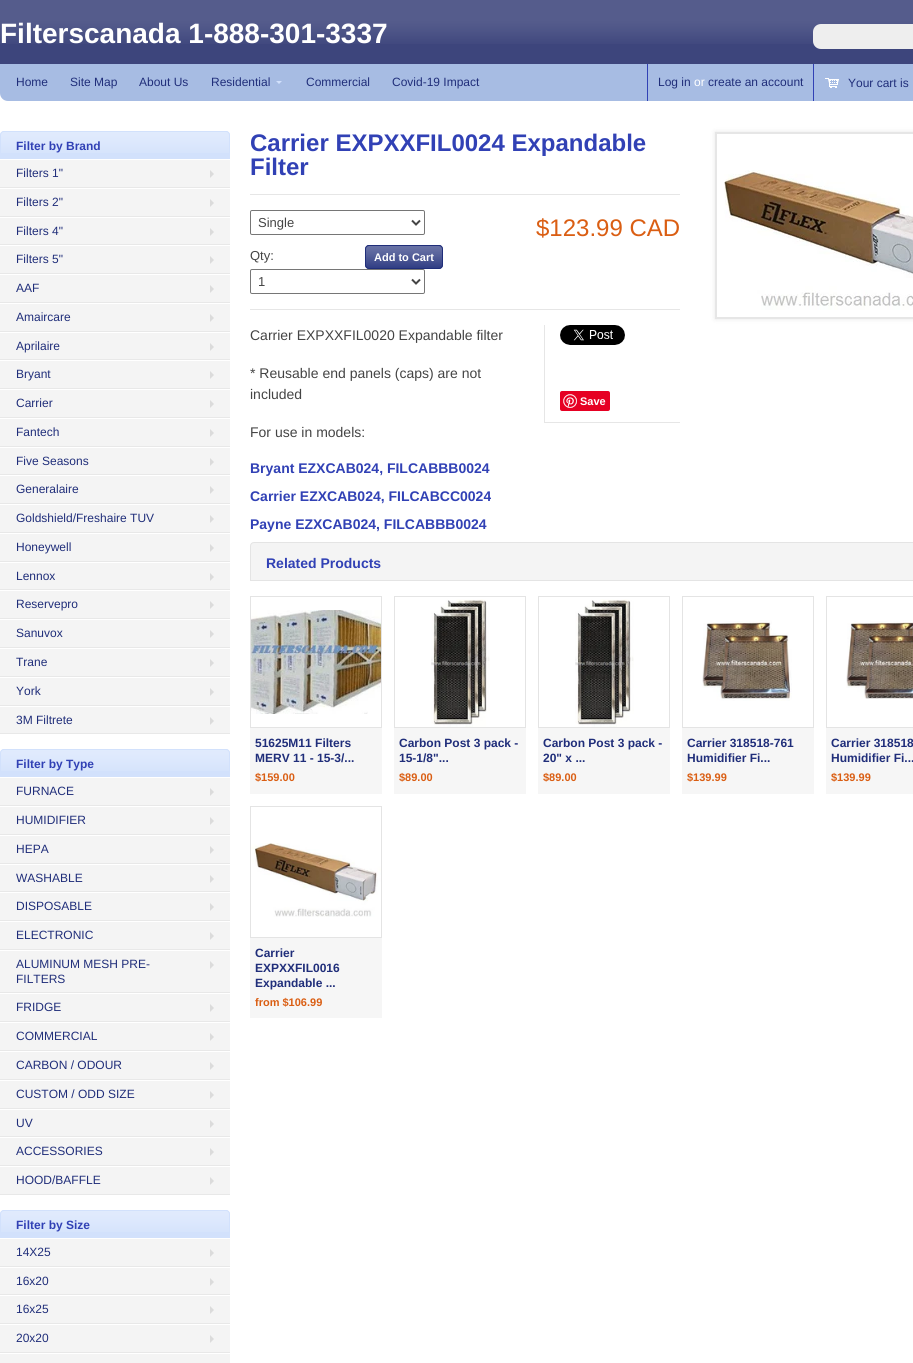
#include <cairo.h>
#include <math.h>
#include <stddef.h>

static cairo_t *c;
static void C(unsigned color){cairo_set_source_rgb(c, (color >> 16) / 255.0, (color >> 8 & 255) / 255.0, (color & 255) / 255.0);}
static void F(const char *family, double size, int italic, int bold){cairo_select_font_face(c, family, italic ? CAIRO_FONT_SLANT_ITALIC : CAIRO_FONT_SLANT_NORMAL,bold ? CAIRO_FONT_WEIGHT_BOLD : CAIRO_FONT_WEIGHT_NORMAL);cairo_set_font_size(c, size);}
static void T(double x, double y, const char *s){cairo_move_to(c, x, y);cairo_show_text(c, s);}
static void R(double x, double y, double w, double h){cairo_rectangle(c, x, y, w, h);cairo_fill(c);}
static void Q(double x, double y, double w, double h, double r){cairo_new_sub_path(c);cairo_arc(c, x + w - r, y + h - r, r, 0, M_PI / 2);cairo_arc(c, x + r, y + h - r, r, M_PI / 2, M_PI);cairo_arc(c, x + r, y + r, r, M_PI, 1.5 * M_PI);cairo_arc(c, x + w - r, y + r, r, 1.5 * M_PI, 2 * M_PI);cairo_close_path(c);}
static void S(double x, double y, double w, double h, double r, double blur, double alpha){cairo_push_group_with_content(c, CAIRO_CONTENT_ALPHA);cairo_set_operator(c, CAIRO_OPERATOR_SOURCE);for (int i = 15; i >= -15 && fmin(w, h) + blur * i / 3 > 0; i -= 2) {double e = blur * i / 6;cairo_set_source_rgba(c, 0, 0, 0, alpha * erfc((i - 1) / 8.5) / 2);Q(x - e, y - e, w + 2 * e, h + 2 * e, fmax(0, fmin(r + e + blur * .6, fmin(w, h) / 2 + e)));cairo_fill(c);}cairo_pattern_t *soft = cairo_pop_group(c);cairo_mask(c, soft);cairo_pattern_destroy(soft);}
static void I(const char *path, double x, double y, double w, double h){cairo_surface_t *image = cairo_image_surface_create_from_png(path);cairo_save(c);cairo_set_source_surface(c, image, x, y);cairo_rectangle(c, x, y, w, h);cairo_fill(c);cairo_restore(c);cairo_surface_destroy(image);}
int main(void) {
cairo_surface_t *surface = cairo_image_surface_create(CAIRO_FORMAT_RGB24, 913, 1363);
c = cairo_create(surface);
cairo_font_options_t *options = cairo_font_options_create();
cairo_font_options_set_hint_metrics(options, CAIRO_HINT_METRICS_OFF);
cairo_font_options_set_hint_style(options, CAIRO_HINT_STYLE_NONE);
cairo_set_font_options(c, options);
cairo_set_miter_limit(c, 4);
C(0x3d457c);
cairo_paint(c);
I("1.png",0,0,913,44);
F("Liberation Sans",28,0,1);
C(0xffffff);
T(0,43,"Filterscanada 1-888-301-3337");
C(0xeeeeee);
cairo_new_path(c);
cairo_move_to(c,821,24);
cairo_line_to(c,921,24);
cairo_line_to(c,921,49);
cairo_line_to(c,821,49);
cairo_curve_to(c,816.5,49,813,45.5,813,41);
cairo_line_to(c,813,32);
cairo_curve_to(c,813,27.5,816.5,24,821,24);
cairo_close_path(c);
cairo_fill(c);
C(0xffffff);
R(0,93,913,1270);
C(0xa7bce3);
cairo_new_path(c);
cairo_move_to(c,0,64);
cairo_line_to(c,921,64);
cairo_line_to(c,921,93);
cairo_curve_to(c,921,97.5,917.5,101,913,101);
cairo_line_to(c,8,101);
cairo_curve_to(c,3.5,101,0,97.5,0,93);
cairo_close_path(c);
cairo_fill(c);
F("Liberation Sans",12,0,0);
C(0x202e7a);
T(16,86,"Home");
T(70,86,"Site Map");
T(139,86,"About Us");
T(211,86,"Residential");
C(0xd2e1fc);
cairo_new_path(c);
cairo_move_to(c,276,81);
cairo_line_to(c,282,81);
cairo_line_to(c,279,84);
cairo_close_path(c);
cairo_fill(c);
C(0x202e7a);
T(306,86,"Commercial");
T(392,86,"Covid-19 Impact");
C(0x3141b5);
R(647,64,1,37);
C(0x202e7a);
T(658,86,"Log in");
C(0xffffff);
T(694,86,"or");
C(0x202e7a);
T(708,86,"create an account");
C(0x3141b5);
R(813,64,1,37);
I("2.png",825,78,14,10);
C(0x202e7a);
T(848,87,"Your cart is");
C(0xd2e1fc);
cairo_new_path(c);
cairo_move_to(c,4,131);
cairo_line_to(c,226,131);
cairo_curve_to(c,228,131,230,133,230,135);
cairo_line_to(c,230,159);
cairo_line_to(c,0,159);
cairo_line_to(c,0,135);
cairo_curve_to(c,0,133,2,131,4,131);
cairo_close_path(c);
cairo_fill(c);
I("3.png",0,132,230,21);
cairo_new_path(c);
cairo_move_to(c,4,131.5);
cairo_line_to(c,226,131.5);
cairo_curve_to(c,228,131.5,229.5,133,229.5,135);
cairo_line_to(c,229.5,158.5);
cairo_line_to(c,.5,158.5);
cairo_line_to(c,.5,135);
cairo_curve_to(c,.5,133,2,131.5,4,131.5);
cairo_close_path(c);
cairo_set_line_width(c,1);
cairo_stroke(c);
F("Liberation Sans",12,0,1);
C(0x3141b5);
T(16,150,"Filter by Brand");
C(0xf4f4f4);
R(0,160,230,27);
C(0xe8e8e8);
R(0,187,230,1);
F("Liberation Sans",12,0,0);
C(0x202e7a);
T(16,177,"Filters 1\"");
C(0xdbdbdb);
cairo_new_path(c);
cairo_move_to(c,210,178);
cairo_line_to(c,210,170);
cairo_line_to(c,214,174);
cairo_close_path(c);
cairo_fill(c);
C(0xf4f4f4);
R(0,189,230,27);
C(0xe8e8e8);
R(0,216,230,1);
C(0x202e7a);
T(16,206,"Filters 2\"");
C(0xdbdbdb);
cairo_new_path(c);
cairo_move_to(c,210,207);
cairo_line_to(c,210,199);
cairo_line_to(c,214,203);
cairo_close_path(c);
cairo_fill(c);
C(0xf4f4f4);
R(0,218,230,26);
C(0xe8e8e8);
R(0,244,230,1);
C(0x202e7a);
T(16,235,"Filters 4\"");
C(0xdbdbdb);
cairo_new_path(c);
cairo_move_to(c,210,236);
cairo_line_to(c,210,228);
cairo_line_to(c,214,232);
cairo_close_path(c);
cairo_fill(c);
C(0xf4f4f4);
R(0,246,230,27);
C(0xe8e8e8);
R(0,273,230,1);
C(0x202e7a);
T(16,263,"Filters 5\"");
C(0xdbdbdb);
cairo_new_path(c);
cairo_move_to(c,210,264);
cairo_line_to(c,210,256);
cairo_line_to(c,214,260);
cairo_close_path(c);
cairo_fill(c);
C(0xf4f4f4);
R(0,275,230,27);
C(0xe8e8e8);
R(0,302,230,1);
C(0x202e7a);
T(16,292,"AAF");
C(0xdbdbdb);
cairo_new_path(c);
cairo_move_to(c,210,293);
cairo_line_to(c,210,285);
cairo_line_to(c,214,289);
cairo_close_path(c);
cairo_fill(c);
C(0xf4f4f4);
R(0,304,230,27);
C(0xe8e8e8);
R(0,331,230,1);
C(0x202e7a);
T(16,321,"Amaircare");
C(0xdbdbdb);
cairo_new_path(c);
cairo_move_to(c,210,322);
cairo_line_to(c,210,314);
cairo_line_to(c,214,318);
cairo_close_path(c);
cairo_fill(c);
C(0xf4f4f4);
R(0,333,230,26);
C(0xe8e8e8);
R(0,359,230,1);
C(0x202e7a);
T(16,350,"Aprilaire");
C(0xdbdbdb);
cairo_new_path(c);
cairo_move_to(c,210,351);
cairo_line_to(c,210,343);
cairo_line_to(c,214,347);
cairo_close_path(c);
cairo_fill(c);
C(0xf4f4f4);
R(0,361,230,27);
C(0xe8e8e8);
R(0,388,230,1);
C(0x202e7a);
T(16,378,"Bryant");
C(0xdbdbdb);
cairo_new_path(c);
cairo_move_to(c,210,379);
cairo_line_to(c,210,371);
cairo_line_to(c,214,375);
cairo_close_path(c);
cairo_fill(c);
C(0xf4f4f4);
R(0,390,230,27);
C(0xe8e8e8);
R(0,417,230,1);
C(0x202e7a);
T(16,407,"Carrier");
C(0xdbdbdb);
cairo_new_path(c);
cairo_move_to(c,210,408);
cairo_line_to(c,210,400);
cairo_line_to(c,214,404);
cairo_close_path(c);
cairo_fill(c);
C(0xf4f4f4);
R(0,419,230,27);
C(0xe8e8e8);
R(0,446,230,1);
C(0x202e7a);
T(16,436,"Fantech");
C(0xdbdbdb);
cairo_new_path(c);
cairo_move_to(c,210,437);
cairo_line_to(c,210,429);
cairo_line_to(c,214,433);
cairo_close_path(c);
cairo_fill(c);
C(0xf4f4f4);
R(0,448,230,26);
C(0xe8e8e8);
R(0,474,230,1);
C(0x202e7a);
T(16,465,"Five Seasons");
C(0xdbdbdb);
cairo_new_path(c);
cairo_move_to(c,210,466);
cairo_line_to(c,210,458);
cairo_line_to(c,214,462);
cairo_close_path(c);
cairo_fill(c);
C(0xf4f4f4);
R(0,476,230,27);
C(0xe8e8e8);
R(0,503,230,1);
C(0x202e7a);
T(16,493,"Generalaire");
C(0xdbdbdb);
cairo_new_path(c);
cairo_move_to(c,210,494);
cairo_line_to(c,210,486);
cairo_line_to(c,214,490);
cairo_close_path(c);
cairo_fill(c);
C(0xf4f4f4);
R(0,505,230,27);
C(0xe8e8e8);
R(0,532,230,1);
C(0x202e7a);
T(16,522,"Goldshield/Freshaire TUV");
C(0xdbdbdb);
cairo_new_path(c);
cairo_move_to(c,210,523);
cairo_line_to(c,210,515);
cairo_line_to(c,214,519);
cairo_close_path(c);
cairo_fill(c);
C(0xf4f4f4);
R(0,534,230,27);
C(0xe8e8e8);
R(0,561,230,1);
C(0x202e7a);
T(16,551,"Honeywell");
C(0xdbdbdb);
cairo_new_path(c);
cairo_move_to(c,210,552);
cairo_line_to(c,210,544);
cairo_line_to(c,214,548);
cairo_close_path(c);
cairo_fill(c);
C(0xf4f4f4);
R(0,563,230,26);
C(0xe8e8e8);
R(0,589,230,1);
C(0x202e7a);
T(16,580,"Lennox");
C(0xdbdbdb);
cairo_new_path(c);
cairo_move_to(c,210,581);
cairo_line_to(c,210,573);
cairo_line_to(c,214,577);
cairo_close_path(c);
cairo_fill(c);
C(0xf4f4f4);
R(0,591,230,27);
C(0xe8e8e8);
R(0,618,230,1);
C(0x202e7a);
T(16,608,"Reservepro");
C(0xdbdbdb);
cairo_new_path(c);
cairo_move_to(c,210,609);
cairo_line_to(c,210,601);
cairo_line_to(c,214,605);
cairo_close_path(c);
cairo_fill(c);
C(0xf4f4f4);
R(0,620,230,27);
C(0xe8e8e8);
R(0,647,230,1);
C(0x202e7a);
T(16,637,"Sanuvox");
C(0xdbdbdb);
cairo_new_path(c);
cairo_move_to(c,210,638);
cairo_line_to(c,210,630);
cairo_line_to(c,214,634);
cairo_close_path(c);
cairo_fill(c);
C(0xf4f4f4);
R(0,649,230,27);
C(0xe8e8e8);
R(0,676,230,1);
C(0x202e7a);
T(16,666,"Trane");
C(0xdbdbdb);
cairo_new_path(c);
cairo_move_to(c,210,667);
cairo_line_to(c,210,659);
cairo_line_to(c,214,663);
cairo_close_path(c);
cairo_fill(c);
C(0xf4f4f4);
R(0,678,230,27);
C(0xe8e8e8);
R(0,705,230,1);
C(0x202e7a);
T(16,695,"York");
C(0xdbdbdb);
cairo_new_path(c);
cairo_move_to(c,210,696);
cairo_line_to(c,210,688);
cairo_line_to(c,214,692);
cairo_close_path(c);
cairo_fill(c);
C(0xf4f4f4);
R(0,707,230,26);
C(0xe8e8e8);
R(0,733,230,1);
C(0x202e7a);
T(16,724,"3M Filtrete");
C(0xdbdbdb);
cairo_new_path(c);
cairo_move_to(c,210,725);
cairo_line_to(c,210,717);
cairo_line_to(c,214,721);
cairo_close_path(c);
cairo_fill(c);
C(0xd2e1fc);
cairo_new_path(c);
cairo_move_to(c,4,749);
cairo_line_to(c,226,749);
cairo_curve_to(c,228,749,230,751,230,753);
cairo_line_to(c,230,777);
cairo_line_to(c,0,777);
cairo_line_to(c,0,753);
cairo_curve_to(c,0,751,2,749,4,749);
cairo_close_path(c);
cairo_fill(c);
I("3.png",0,750,230,21);
cairo_new_path(c);
cairo_move_to(c,4,749.5);
cairo_line_to(c,226,749.5);
cairo_curve_to(c,228,749.5,229.5,751,229.5,753);
cairo_line_to(c,229.5,776.5);
cairo_line_to(c,.5,776.5);
cairo_line_to(c,.5,753);
cairo_curve_to(c,.5,751,2,749.5,4,749.5);
cairo_close_path(c);
cairo_stroke(c);
F("Liberation Sans",12,0,1);
C(0x3141b5);
T(16,768,"Filter by Type");
C(0xf4f4f4);
R(0,778,230,27);
C(0xe8e8e8);
R(0,805,230,1);
F("Liberation Sans",12,0,0);
C(0x202e7a);
T(16,795,"FURNACE");
C(0xdbdbdb);
cairo_new_path(c);
cairo_move_to(c,210,796);
cairo_line_to(c,210,788);
cairo_line_to(c,214,792);
cairo_close_path(c);
cairo_fill(c);
C(0xf4f4f4);
R(0,807,230,27);
C(0xe8e8e8);
R(0,834,230,1);
C(0x202e7a);
T(16,824,"HUMIDIFIER");
C(0xdbdbdb);
cairo_new_path(c);
cairo_move_to(c,210,825);
cairo_line_to(c,210,817);
cairo_line_to(c,214,821);
cairo_close_path(c);
cairo_fill(c);
C(0xf4f4f4);
R(0,836,230,27);
C(0xe8e8e8);
R(0,863,230,1);
C(0x202e7a);
T(16,853,"HEPA");
C(0xdbdbdb);
cairo_new_path(c);
cairo_move_to(c,210,854);
cairo_line_to(c,210,846);
cairo_line_to(c,214,850);
cairo_close_path(c);
cairo_fill(c);
C(0xf4f4f4);
R(0,865,230,26);
C(0xe8e8e8);
R(0,891,230,1);
C(0x202e7a);
T(16,882,"WASHABLE");
C(0xdbdbdb);
cairo_new_path(c);
cairo_move_to(c,210,883);
cairo_line_to(c,210,875);
cairo_line_to(c,214,879);
cairo_close_path(c);
cairo_fill(c);
C(0xf4f4f4);
R(0,893,230,27);
C(0xe8e8e8);
R(0,920,230,1);
C(0x202e7a);
T(16,910,"DISPOSABLE");
C(0xdbdbdb);
cairo_new_path(c);
cairo_move_to(c,210,911);
cairo_line_to(c,210,903);
cairo_line_to(c,214,907);
cairo_close_path(c);
cairo_fill(c);
C(0xf4f4f4);
R(0,922,230,27);
C(0xe8e8e8);
R(0,949,230,1);
C(0x202e7a);
T(16,939,"ELECTRONIC");
C(0xdbdbdb);
cairo_new_path(c);
cairo_move_to(c,210,940);
cairo_line_to(c,210,932);
cairo_line_to(c,214,936);
cairo_close_path(c);
cairo_fill(c);
C(0xf4f4f4);
R(0,951,230,41);
C(0xe8e8e8);
R(0,992,230,1);
C(0x202e7a);
T(16,968,"ALUMINUM MESH PRE-");
C(0xdbdbdb);
cairo_new_path(c);
cairo_move_to(c,210,969);
cairo_line_to(c,210,961);
cairo_line_to(c,214,965);
cairo_close_path(c);
cairo_fill(c);
C(0x202e7a);
T(16,983,"FILTERS");
C(0xf4f4f4);
R(0,994,230,27);
C(0xe8e8e8);
R(0,1021,230,1);
C(0x202e7a);
T(16,1011,"FRIDGE");
C(0xdbdbdb);
cairo_new_path(c);
cairo_move_to(c,210,1012);
cairo_line_to(c,210,1004);
cairo_line_to(c,214,1008);
cairo_close_path(c);
cairo_fill(c);
C(0xf4f4f4);
R(0,1023,230,27);
C(0xe8e8e8);
R(0,1050,230,1);
C(0x202e7a);
T(16,1040,"COMMERCIAL");
C(0xdbdbdb);
cairo_new_path(c);
cairo_move_to(c,210,1041);
cairo_line_to(c,210,1033);
cairo_line_to(c,214,1037);
cairo_close_path(c);
cairo_fill(c);
C(0xf4f4f4);
R(0,1052,230,27);
C(0xe8e8e8);
R(0,1079,230,1);
C(0x202e7a);
T(16,1069,"CARBON / ODOUR");
C(0xdbdbdb);
cairo_new_path(c);
cairo_move_to(c,210,1070);
cairo_line_to(c,210,1062);
cairo_line_to(c,214,1066);
cairo_close_path(c);
cairo_fill(c);
C(0xf4f4f4);
R(0,1081,230,27);
C(0xe8e8e8);
R(0,1108,230,1);
C(0x202e7a);
T(16,1098,"CUSTOM / ODD SIZE");
C(0xdbdbdb);
cairo_new_path(c);
cairo_move_to(c,210,1099);
cairo_line_to(c,210,1091);
cairo_line_to(c,214,1095);
cairo_close_path(c);
cairo_fill(c);
C(0xf4f4f4);
R(0,1110,230,26);
C(0xe8e8e8);
R(0,1136,230,1);
C(0x202e7a);
T(16,1127,"UV");
C(0xdbdbdb);
cairo_new_path(c);
cairo_move_to(c,210,1128);
cairo_line_to(c,210,1120);
cairo_line_to(c,214,1124);
cairo_close_path(c);
cairo_fill(c);
C(0xf4f4f4);
R(0,1138,230,27);
C(0xe8e8e8);
R(0,1165,230,1);
C(0x202e7a);
T(16,1155,"ACCESSORIES");
C(0xdbdbdb);
cairo_new_path(c);
cairo_move_to(c,210,1156);
cairo_line_to(c,210,1148);
cairo_line_to(c,214,1152);
cairo_close_path(c);
cairo_fill(c);
C(0xf4f4f4);
R(0,1167,230,27);
C(0xe8e8e8);
R(0,1194,230,1);
C(0x202e7a);
T(16,1184,"HOOD/BAFFLE");
C(0xdbdbdb);
cairo_new_path(c);
cairo_move_to(c,210,1185);
cairo_line_to(c,210,1177);
cairo_line_to(c,214,1181);
cairo_close_path(c);
cairo_fill(c);
C(0xd2e1fc);
cairo_new_path(c);
cairo_move_to(c,4,1210);
cairo_line_to(c,226,1210);
cairo_curve_to(c,228,1210,230,1212,230,1214);
cairo_line_to(c,230,1238);
cairo_line_to(c,0,1238);
cairo_line_to(c,0,1214);
cairo_curve_to(c,0,1212,2,1210,4,1210);
cairo_close_path(c);
cairo_fill(c);
I("3.png",0,1211,230,21);
cairo_new_path(c);
cairo_move_to(c,4,1210.5);
cairo_line_to(c,226,1210.5);
cairo_curve_to(c,228,1210.5,229.5,1212,229.5,1214);
cairo_line_to(c,229.5,1237.5);
cairo_line_to(c,.5,1237.5);
cairo_line_to(c,.5,1214);
cairo_curve_to(c,.5,1212,2,1210.5,4,1210.5);
cairo_close_path(c);
cairo_stroke(c);
F("Liberation Sans",12,0,1);
C(0x3141b5);
T(16,1229,"Filter by Size");
C(0xf4f4f4);
R(0,1239,230,27);
C(0xe8e8e8);
R(0,1266,230,1);
F("Liberation Sans",12,0,0);
C(0x202e7a);
T(16,1256,"14X25");
C(0xdbdbdb);
cairo_new_path(c);
cairo_move_to(c,210,1257);
cairo_line_to(c,210,1249);
cairo_line_to(c,214,1253);
cairo_close_path(c);
cairo_fill(c);
C(0xf4f4f4);
R(0,1268,230,26);
C(0xe8e8e8);
R(0,1294,230,1);
C(0x202e7a);
T(16,1285,"16x20");
C(0xdbdbdb);
cairo_new_path(c);
cairo_move_to(c,210,1286);
cairo_line_to(c,210,1278);
cairo_line_to(c,214,1282);
cairo_close_path(c);
cairo_fill(c);
C(0xf4f4f4);
R(0,1296,230,27);
C(0xe8e8e8);
R(0,1323,230,1);
C(0x202e7a);
T(16,1313,"16x25");
C(0xdbdbdb);
cairo_new_path(c);
cairo_move_to(c,210,1314);
cairo_line_to(c,210,1306);
cairo_line_to(c,214,1310);
cairo_close_path(c);
cairo_fill(c);
C(0xf4f4f4);
R(0,1325,230,27);
C(0xe8e8e8);
R(0,1352,230,1);
C(0x202e7a);
T(16,1342,"20x20");
C(0xdbdbdb);
cairo_new_path(c);
cairo_move_to(c,210,1343);
cairo_line_to(c,210,1335);
cairo_line_to(c,214,1339);
cairo_close_path(c);
cairo_fill(c);
C(0xf4f4f4);
R(0,1354,230,9);
C(0xe6e6e6);
R(250,194,430,1);
F("Liberation Sans",24,0,1);
C(0x3141b5);
T(250,151,"Carrier EXPXXFIL0024 Expandable");
T(250,175,"Filter");
C(0xe6e6e6);
R(250,309,430,1);
Q(250.5,210.5,174,24,1.5);
C(0x767676);
cairo_stroke(c);
cairo_new_path(c);
cairo_move_to(c,412,220.5);
cairo_line_to(c,416,224.5);
cairo_line_to(c,420,220.5);
C(0x444444);
cairo_set_line_width(c,2);
cairo_stroke(c);
F("Liberation Sans",13,0,0);
T(258,227,"Single");
T(250,260,"Qty:");
C(0x202e7a);
Q(365,245,78,24,4);
cairo_fill(c);
I("4.png",365,246,78,23);
Q(365.5,245.5,77,23,3.5);
cairo_set_line_width(c,1);
cairo_stroke(c);
F("Liberation Sans",11,0,1);
C(0xffffff);
T(374,261,"Add to Cart");
Q(250.5,269.5,174,24,1.5);
C(0x767676);
cairo_stroke(c);
cairo_new_path(c);
cairo_move_to(c,412,279.5);
cairo_line_to(c,416,283.5);
cairo_line_to(c,420,279.5);
C(0x444444);
cairo_set_line_width(c,2);
cairo_stroke(c);
F("Liberation Sans",13,0,0);
T(258,286,"1");
F("Liberation Sans",24,0,0);
C(0xda5e13);
T(536,236,"$123.99 CAD");
F("Liberation Sans",14,0,0);
C(0x444444);
T(250,340,"Carrier EXPXXFIL0020 Expandable filter");
T(250,378,"* Reusable end panels (caps) are not");
T(250,399,"included");
C(0xe6e6e6);
R(544,422,136,1);
R(544,325,1,98);
I("5.png",560,325,65,20);
C(0xe60023);
Q(560,391,50,20,2);
cairo_fill(c);
I("6.png",563,394,14,14);
F("Liberation Sans",11,0,1);
C(0xffffff);
T(580,405,"Save");
F("Liberation Sans",14,0,0);
C(0x444444);
T(250,437,"For use in models:");
F("Liberation Sans",14,0,1);
C(0x3141b5);
T(250,473,"Bryant EZXCAB024, FILCABBB0024");
T(250,501,"Carrier EZXCAB024, FILCABCC0024");
T(250,529,"Payne EZXCAB024, FILCABBB0024");
cairo_save(c);
cairo_set_fill_rule(c,CAIRO_FILL_RULE_EVEN_ODD);
cairo_new_path(c);
cairo_move_to(c,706,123);
cairo_line_to(c,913,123);
cairo_line_to(c,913,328);
cairo_line_to(c,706,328);
cairo_close_path(c);
cairo_move_to(c,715,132);
cairo_line_to(c,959,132);
cairo_line_to(c,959,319);
cairo_line_to(c,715,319);
cairo_close_path(c);
cairo_clip(c);
C(0x000000);
S(715,132,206,187,0,2.5,.1);
cairo_restore(c);
cairo_rectangle(c,716,133,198,185);
C(0xe6e6e6);
cairo_stroke(c);
I("7.png",724,170,189,140);
C(0xf4f4f4);
cairo_new_path(c);
cairo_move_to(c,254,542.5);
cairo_line_to(c,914,542.5);
cairo_curve_to(c,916,542.5,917.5,544,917.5,546);
cairo_line_to(c,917.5,580.5);
cairo_line_to(c,250.5,580.5);
cairo_line_to(c,250.5,546);
cairo_curve_to(c,250.5,544,252,542.5,254,542.5);
cairo_close_path(c);
cairo_fill_preserve(c);
C(0xe4e4e4);
cairo_set_line_width(c,1);
cairo_stroke(c);
C(0x3141b5);
T(266,568,"Related Products");
cairo_rectangle(c,250.5,596.5,131,131);
C(0xe4e4e4);
cairo_stroke(c);
I("8.png",251,610,130,104);
C(0xf6f6f6);
R(250,728,132,66);
F("Liberation Sans",12,0,1);
C(0x202e7a);
T(255,747,"51625M11 Filters");
T(255,762,"MERV 11 - 15-3/...");
F("Liberation Sans",11,0,1);
C(0xda5e13);
T(255,781,"$159.00");
cairo_rectangle(c,394.5,596.5,131,131);
C(0xe4e4e4);
cairo_stroke(c);
I("9.png",431,599,59,128);
C(0xf6f6f6);
R(394,728,132,66);
F("Liberation Sans",12,0,1);
C(0x202e7a);
T(399,747,"Carbon Post 3 pack -");
T(399,762,"15-1/8\"...");
F("Liberation Sans",11,0,1);
C(0xda5e13);
T(399,781,"$89.00");
cairo_rectangle(c,538.5,596.5,131,131);
C(0xe4e4e4);
cairo_stroke(c);
I("9.png",575,599,59,128);
C(0xf6f6f6);
R(538,728,132,66);
F("Liberation Sans",12,0,1);
C(0x202e7a);
T(543,747,"Carbon Post 3 pack -");
T(543,762,"20\" x ...");
F("Liberation Sans",11,0,1);
C(0xda5e13);
T(543,781,"$89.00");
cairo_rectangle(c,682.5,596.5,131,131);
C(0xe4e4e4);
cairo_stroke(c);
I("10.png",702,620,90,81);
C(0xf6f6f6);
R(682,728,132,66);
F("Liberation Sans",12,0,1);
C(0x202e7a);
T(687,747,"Carrier 318518-761");
T(687,762,"Humidifier Fi...");
F("Liberation Sans",11,0,1);
C(0xda5e13);
T(687,781,"$139.99");
cairo_rectangle(c,826.5,596.5,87,131);
C(0xe4e4e4);
cairo_stroke(c);
I("11.png",846,620,67,79);
C(0xf6f6f6);
R(826,728,87,66);
F("Liberation Sans",12,0,1);
C(0x202e7a);
T(831,747,"Carrier 318518");
T(831,762,"Humidifier Fi...");
F("Liberation Sans",11,0,1);
C(0xda5e13);
T(831,781,"$139.99");
cairo_rectangle(c,250.5,806.5,131,131);
C(0xe4e4e4);
cairo_stroke(c);
I("12.png",251,843,130,74);
C(0xf6f6f6);
R(250,938,132,80);
F("Liberation Sans",12,0,1);
C(0x202e7a);
T(255,957,"Carrier");
T(255,972,"EXPXXFIL0016");
T(255,987,"Expandable ...");
F("Liberation Sans",11,0,1);
C(0xda5e13);
T(255,1006,"from $106.99");
cairo_surface_write_to_png(surface, "o.png");
cairo_font_options_destroy(options);
cairo_destroy(c);
cairo_surface_destroy(surface);
return 0;
}
